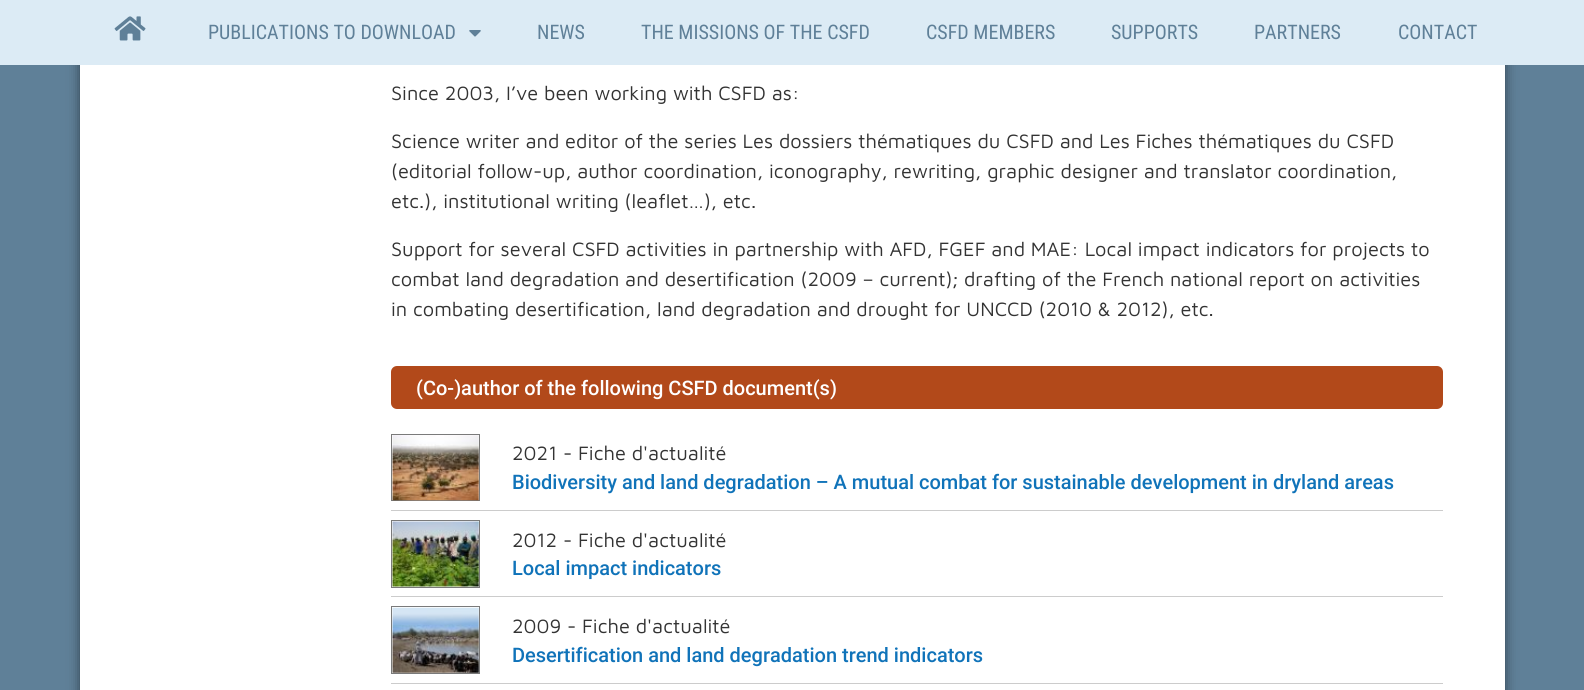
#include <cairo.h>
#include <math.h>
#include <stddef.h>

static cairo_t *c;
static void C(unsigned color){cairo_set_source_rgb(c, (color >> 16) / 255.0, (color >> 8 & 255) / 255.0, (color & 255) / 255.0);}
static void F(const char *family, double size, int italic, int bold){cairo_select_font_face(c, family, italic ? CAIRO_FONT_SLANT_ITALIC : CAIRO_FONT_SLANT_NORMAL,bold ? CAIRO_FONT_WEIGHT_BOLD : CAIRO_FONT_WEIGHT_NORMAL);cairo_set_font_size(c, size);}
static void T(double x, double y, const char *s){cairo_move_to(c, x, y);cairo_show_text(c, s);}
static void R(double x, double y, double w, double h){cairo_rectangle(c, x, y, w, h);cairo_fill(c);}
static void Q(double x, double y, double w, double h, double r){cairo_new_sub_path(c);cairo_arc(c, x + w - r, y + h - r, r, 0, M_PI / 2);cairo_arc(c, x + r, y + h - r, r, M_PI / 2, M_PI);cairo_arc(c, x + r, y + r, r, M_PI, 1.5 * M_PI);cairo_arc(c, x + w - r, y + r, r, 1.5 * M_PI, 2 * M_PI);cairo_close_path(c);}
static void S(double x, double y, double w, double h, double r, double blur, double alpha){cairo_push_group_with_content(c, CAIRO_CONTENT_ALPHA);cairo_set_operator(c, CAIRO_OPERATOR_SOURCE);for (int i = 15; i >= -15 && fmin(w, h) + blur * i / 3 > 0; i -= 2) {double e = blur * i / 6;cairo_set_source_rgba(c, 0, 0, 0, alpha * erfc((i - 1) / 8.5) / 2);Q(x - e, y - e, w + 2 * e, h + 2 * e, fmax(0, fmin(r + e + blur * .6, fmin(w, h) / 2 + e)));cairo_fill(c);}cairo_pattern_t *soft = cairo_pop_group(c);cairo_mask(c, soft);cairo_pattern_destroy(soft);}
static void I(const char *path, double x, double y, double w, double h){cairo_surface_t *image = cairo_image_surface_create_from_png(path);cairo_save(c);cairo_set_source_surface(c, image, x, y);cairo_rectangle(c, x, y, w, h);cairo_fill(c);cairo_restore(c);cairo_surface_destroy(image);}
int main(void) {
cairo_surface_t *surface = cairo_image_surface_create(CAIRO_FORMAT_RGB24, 1584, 690);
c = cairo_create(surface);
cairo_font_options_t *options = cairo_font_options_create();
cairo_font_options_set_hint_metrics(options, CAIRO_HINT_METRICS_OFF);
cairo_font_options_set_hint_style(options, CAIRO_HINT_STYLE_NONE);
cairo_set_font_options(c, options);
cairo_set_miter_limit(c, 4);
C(0x5f8098);
cairo_paint(c);
C(0x000000);
S(80,-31,1425,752,13,6,.5);
C(0xdcebf5);
R(0,0,1584,65);
I("1.png",114,16,32,25);
F("Roboto Condensed",20,0,0);
C(0x5f8098);
T(208,39,"PUBLICATIONS TO DOWNLOAD");
I("2.png",469,30,12,7);
T(537,39,"NEWS");
T(641,39,"THE MISSIONS OF THE CSFD");
T(926,39,"CSFD MEMBERS");
T(1111,39,"SUPPORTS");
T(1254,39,"PARTNERS");
T(1398,39,"CONTACT");
C(0xffffff);
R(80,65,1425,625);
F("Maven Pro",20,0,0);
C(0x333333);
T(391,100,"Since 2003, I’ve been working with CSFD as:");
T(391,148,"Science writer and editor of the series Les dossiers thématiques du CSFD and Les Fiches thématiques du CSFD");
T(391,178,"(editorial follow-up, author coordination, iconography, rewriting, graphic designer and translator coordination,");
T(391,208,"etc.), institutional writing (leaflet…), etc.");
T(391,256,"Support for several CSFD activities in partnership with AFD, FGEF and MAE: Local impact indicators for projects to");
T(391,286,"combat land degradation and desertification (2009 – current); drafting of the French national report on activities");
T(391,316,"in combating desertification, land degradation and drought for UNCCD (2010 & 2012), etc.");
C(0xb2491a);
Q(391,366,1052,43,6);
cairo_fill(c);
F("Roboto Medium",20,0,0);
C(0xffffff);
T(416,395,"(Co-)author of the following CSFD document(s)");
cairo_rectangle(c,391.5,434.5,88,66);
C(0x7a7a7a);
cairo_set_line_width(c,1);
cairo_stroke(c);
I("3.png",392,435,87,66);
F("Maven Pro",20,0,0);
C(0x333333);
T(512,460,"2021 - Fiche d'actualité");
F("Roboto Medium",20,0,0);
C(0x1073b9);
T(512,489,"Biodiversity and land degradation – A mutual combat for sustainable development in dryland areas");
C(0xcccccc);
R(391,510,1052,1);
cairo_rectangle(c,391.5,520.5,88,67);
C(0x7a7a7a);
cairo_stroke(c);
I("4.png",392,521,87,66);
F("Maven Pro",20,0,0);
C(0x333333);
T(512,547,"2012 - Fiche d'actualité");
F("Roboto Medium",20,0,0);
C(0x1073b9);
T(512,575,"Local impact indicators");
C(0xcccccc);
R(391,596,1052,1);
cairo_rectangle(c,391.5,606.5,88,67);
C(0x7a7a7a);
cairo_stroke(c);
I("5.png",392,607,87,66);
F("Maven Pro",20,0,0);
C(0x333333);
T(512,633,"2009 - Fiche d'actualité");
F("Roboto Medium",20,0,0);
C(0x1073b9);
T(512,662,"Desertification and land degradation trend indicators");
C(0xcccccc);
R(391,683,1052,1);
cairo_surface_write_to_png(surface, "o.png");
cairo_font_options_destroy(options);
cairo_destroy(c);
cairo_surface_destroy(surface);
return 0;
}
